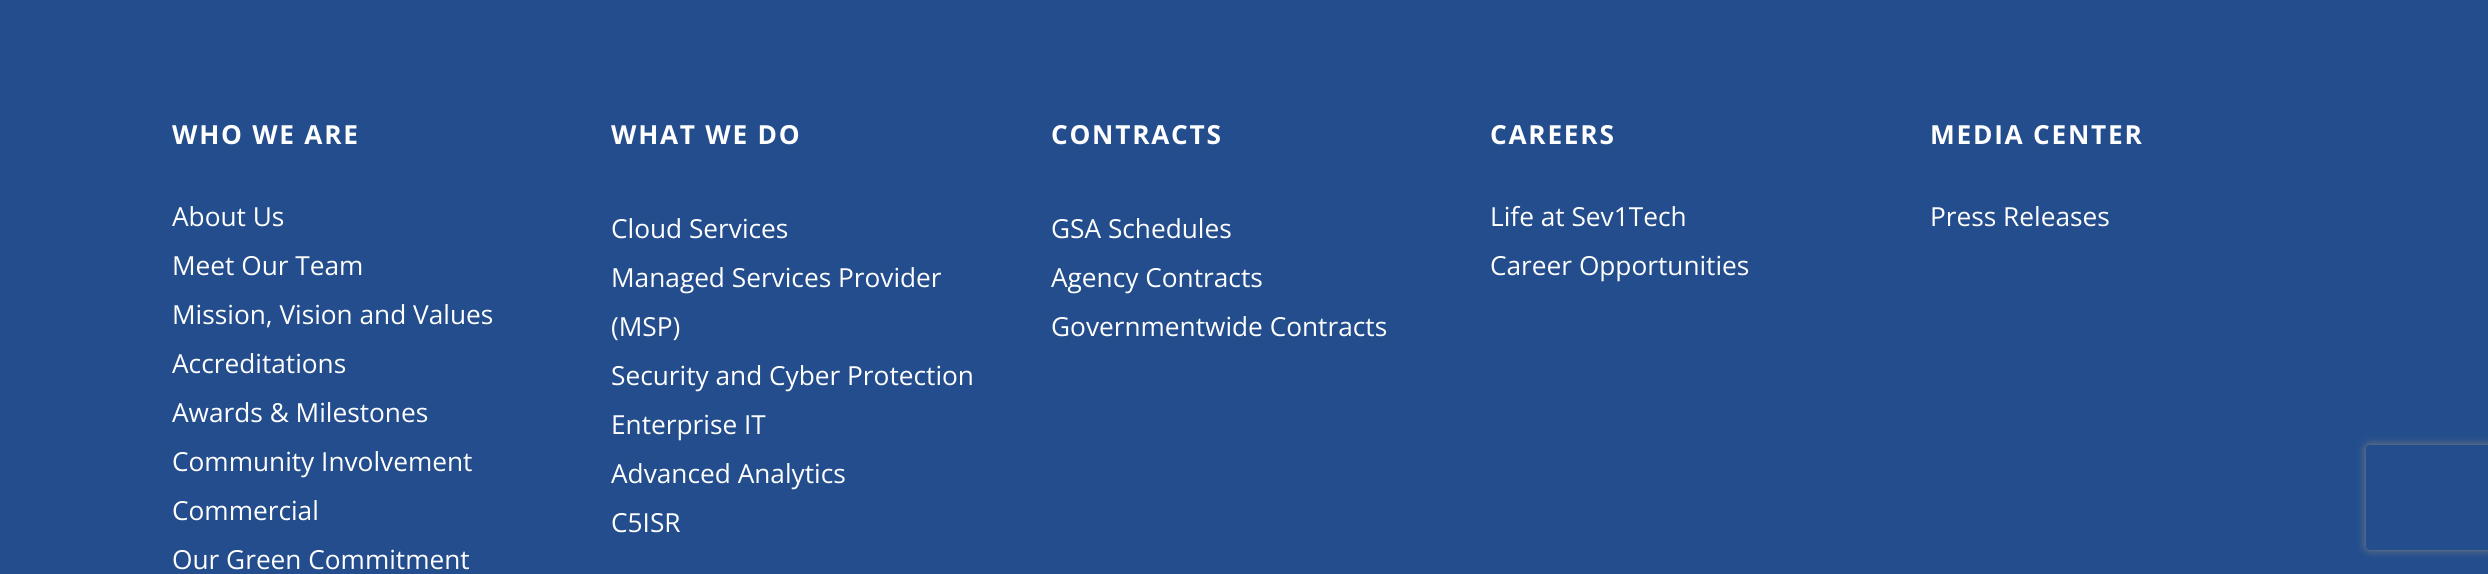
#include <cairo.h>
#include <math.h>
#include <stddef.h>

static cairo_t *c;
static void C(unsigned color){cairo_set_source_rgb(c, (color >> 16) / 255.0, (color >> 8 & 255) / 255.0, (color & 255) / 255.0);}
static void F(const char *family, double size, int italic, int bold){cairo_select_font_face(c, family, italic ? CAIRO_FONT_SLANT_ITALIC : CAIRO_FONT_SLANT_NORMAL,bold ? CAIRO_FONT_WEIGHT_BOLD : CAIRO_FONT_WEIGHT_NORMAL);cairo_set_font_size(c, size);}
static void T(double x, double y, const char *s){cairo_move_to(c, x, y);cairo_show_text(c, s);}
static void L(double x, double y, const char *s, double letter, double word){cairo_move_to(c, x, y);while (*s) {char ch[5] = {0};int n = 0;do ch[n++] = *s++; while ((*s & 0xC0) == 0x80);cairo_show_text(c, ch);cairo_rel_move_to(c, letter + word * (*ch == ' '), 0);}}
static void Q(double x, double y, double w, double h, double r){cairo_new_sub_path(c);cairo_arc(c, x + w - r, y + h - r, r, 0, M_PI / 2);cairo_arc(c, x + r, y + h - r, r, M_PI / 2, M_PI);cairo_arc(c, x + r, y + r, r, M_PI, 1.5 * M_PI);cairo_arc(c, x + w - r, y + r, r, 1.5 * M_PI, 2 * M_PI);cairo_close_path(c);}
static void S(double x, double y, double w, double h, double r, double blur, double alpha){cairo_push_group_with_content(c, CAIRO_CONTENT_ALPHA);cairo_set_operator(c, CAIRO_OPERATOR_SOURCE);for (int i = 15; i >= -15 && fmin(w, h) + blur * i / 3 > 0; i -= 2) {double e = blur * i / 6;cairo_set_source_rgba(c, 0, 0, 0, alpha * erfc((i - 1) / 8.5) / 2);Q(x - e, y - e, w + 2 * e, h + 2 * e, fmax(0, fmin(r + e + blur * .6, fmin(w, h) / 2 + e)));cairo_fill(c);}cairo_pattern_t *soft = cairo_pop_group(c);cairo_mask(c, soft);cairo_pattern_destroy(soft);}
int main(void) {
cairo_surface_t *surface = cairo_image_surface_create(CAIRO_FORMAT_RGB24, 2488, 574);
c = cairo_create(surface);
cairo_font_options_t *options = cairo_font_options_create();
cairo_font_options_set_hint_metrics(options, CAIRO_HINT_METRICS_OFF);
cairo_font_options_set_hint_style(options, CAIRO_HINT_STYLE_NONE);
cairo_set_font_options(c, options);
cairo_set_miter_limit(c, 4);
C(0x234d8d);
cairo_paint(c);
F("Open Sans",26.25,0,1);
C(0xffffff);
L(172,144,"WHO WE ARE",1.75,0);
F("Open Sans",26.25,0,0);
T(172,226,"About Us");
T(172,275,"Meet Our Team");
T(172,324,"Mission, Vision and Values");
T(172,373,"Accreditations");
T(172,422,"Awards & Milestones");
T(172,471,"Community Involvement");
T(172,520,"Commercial");
T(172,569,"Our Green Commitment");
F("Open Sans",26.25,0,1);
L(611,144,"WHAT WE DO",1.75,0);
F("Open Sans",26.25,0,0);
T(611,238,"Cloud Services");
T(611,287,"Managed Services Provider");
T(611,336,"(MSP)");
T(611,385,"Security and Cyber Protection");
T(611,434,"Enterprise IT");
T(611,483,"Advanced Analytics");
T(611,532,"C5ISR");
F("Open Sans",26.25,0,1);
L(1051,144,"CONTRACTS",1.75,0);
F("Open Sans",26.25,0,0);
T(1051,238,"GSA Schedules");
T(1051,287,"Agency Contracts");
T(1051,336,"Governmentwide Contracts");
F("Open Sans",26.25,0,1);
L(1490,144,"CAREERS",1.75,0);
F("Open Sans",26.25,0,0);
T(1490,226,"Life at Sev1Tech");
T(1490,275,"Career Opportunities");
F("Open Sans",26.25,0,1);
L(1930,144,"MEDIA CENTER",1.75,0);
F("Open Sans",26.25,0,0);
T(1930,226,"Press Releases");
cairo_save(c);
cairo_set_fill_rule(c,CAIRO_FILL_RULE_EVEN_ODD);
cairo_new_path(c);
cairo_move_to(c,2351,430);
cairo_line_to(c,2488,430);
cairo_line_to(c,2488,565);
cairo_line_to(c,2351,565);
cairo_close_path(c);
cairo_move_to(c,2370,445);
cairo_line_to(c,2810,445);
cairo_curve_to(c,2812,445,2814,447,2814,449);
cairo_line_to(c,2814,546);
cairo_curve_to(c,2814,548,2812,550,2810,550);
cairo_line_to(c,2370,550);
cairo_curve_to(c,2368,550,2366,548,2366,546);
cairo_line_to(c,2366,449);
cairo_curve_to(c,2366,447,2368,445,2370,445);
cairo_close_path(c);
cairo_clip(c);
C(0x808080);
S(2366,445,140,105,4,4.5,1);
cairo_restore(c);
cairo_surface_write_to_png(surface, "o.png");
cairo_font_options_destroy(options);
cairo_destroy(c);
cairo_surface_destroy(surface);
return 0;
}
